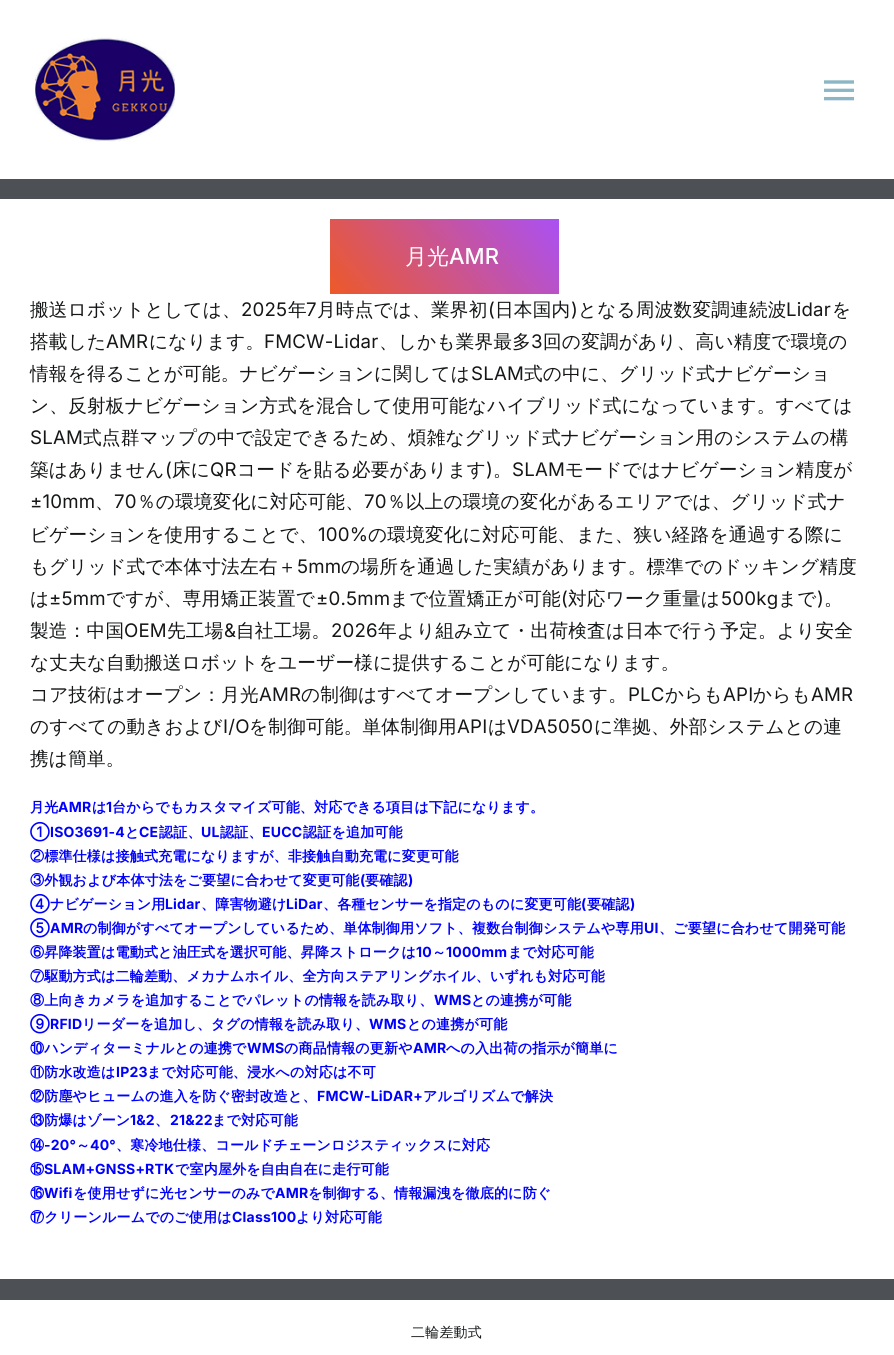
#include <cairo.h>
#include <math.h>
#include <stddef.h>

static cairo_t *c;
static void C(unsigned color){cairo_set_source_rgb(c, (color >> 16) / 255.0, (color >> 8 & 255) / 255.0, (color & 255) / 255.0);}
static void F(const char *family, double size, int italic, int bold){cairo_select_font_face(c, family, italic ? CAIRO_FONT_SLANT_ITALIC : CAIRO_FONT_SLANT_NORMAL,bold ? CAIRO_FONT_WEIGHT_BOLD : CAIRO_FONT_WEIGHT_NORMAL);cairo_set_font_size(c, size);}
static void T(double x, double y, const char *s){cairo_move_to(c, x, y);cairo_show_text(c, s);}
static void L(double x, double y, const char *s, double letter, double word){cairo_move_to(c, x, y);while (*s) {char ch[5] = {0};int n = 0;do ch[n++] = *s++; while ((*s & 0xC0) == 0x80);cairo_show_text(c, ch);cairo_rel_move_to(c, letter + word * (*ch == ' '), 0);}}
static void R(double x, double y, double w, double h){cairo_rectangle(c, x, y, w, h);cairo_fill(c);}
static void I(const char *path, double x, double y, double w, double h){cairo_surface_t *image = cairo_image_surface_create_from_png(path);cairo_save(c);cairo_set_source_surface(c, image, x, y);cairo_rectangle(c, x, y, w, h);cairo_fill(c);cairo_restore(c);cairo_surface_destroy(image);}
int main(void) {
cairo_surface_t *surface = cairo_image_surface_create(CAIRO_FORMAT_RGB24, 894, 1355);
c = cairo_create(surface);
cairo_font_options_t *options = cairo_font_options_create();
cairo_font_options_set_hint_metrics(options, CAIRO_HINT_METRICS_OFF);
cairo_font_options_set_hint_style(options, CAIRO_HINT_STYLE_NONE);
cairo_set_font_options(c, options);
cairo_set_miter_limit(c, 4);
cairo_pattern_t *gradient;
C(0x4d5156);
cairo_paint(c);
C(0xffffff);
R(0,0,894,179);
I("1.png",35,37,140,105);
I("2.png",824,80,30,21);
R(0,199,894,1080);
gradient = cairo_pattern_create_linear(359,328,530,185);
cairo_pattern_add_color_stop_rgba(gradient,0,0.929,0.349,0.157,1);
cairo_pattern_add_color_stop_rgba(gradient,1,0.667,0.314,0.957,1);
cairo_set_source(c,gradient);
cairo_pattern_destroy(gradient);
R(330,219,229,75);
F("WenQuanYi Zen Hei Medium",22,0,0);
C(0xffffff);
T(405,264,"月光");
F("Inter Medium",22,0,0);
T(449,264,"AMR");
F("WenQuanYi Zen Hei Medium",18.65,0,0);
C(0x141617);
L(30,316,"搬送ロボットとしては、",.2,0);
F("Inter",18.65,0,0);
L(241,316,"2025",.2,0);
F("WenQuanYi Zen Hei Medium",18.65,0,0);
L(288,316,"年",.2,0);
F("Inter",18.65,0,0);
L(306,316,"7",.2,0);
F("WenQuanYi Zen Hei Medium",18.65,0,0);
L(317,316,"月時点では、業界初",.2,0);
F("Inter",18.65,0,0);
L(488,316,"(",.2,0);
F("WenQuanYi Zen Hei Medium",18.65,0,0);
L(495,316,"日本国内",.2,0);
F("Inter",18.65,0,0);
L(571,316,")",.2,0);
F("WenQuanYi Zen Hei Medium",18.65,0,0);
L(578,316,"となる周波数変調連続波",.2,0);
F("Inter",18.65,0,0);
L(786,316,"Lidar",.2,0);
F("WenQuanYi Zen Hei Medium",18.65,0,0);
L(832,316,"を",.2,0);
L(30,348,"搭載した",.2,0);
F("Inter",18.65,0,0);
L(106,348,"AMR",.2,0);
F("WenQuanYi Zen Hei Medium",18.65,0,0);
L(149,348,"になります。",.2,0);
F("Inter",18.65,0,0);
L(264,348,"FMCW-Lidar",.2,0);
F("WenQuanYi Zen Hei Medium",18.65,0,0);
L(379,348,"、しかも業界最多",.2,0);
F("Inter",18.65,0,0);
L(531,348,"3",.2,0);
F("WenQuanYi Zen Hei Medium",18.65,0,0);
L(543,348,"回の変調があり、高い精度で環境の",.2,0);
L(30,380,"情報を得ることが可能。ナビゲーションに関しては",.2,0);
F("Inter",18.65,0,0);
L(471,380,"SLAM",.2,0);
F("WenQuanYi Zen Hei Medium",18.65,0,0);
L(524,380,"式の中に、グリッド式ナビゲーショ",.2,0);
L(30,412,"ン、反射板ナビゲーション方式を混合して使用可能なハイブリッド式になっています。すべては",.2,0);
F("Inter",18.65,0,0);
L(30,444,"SLAM",.2,0);
F("WenQuanYi Zen Hei Medium",18.65,0,0);
L(83,444,"式点群マップの中で設定できるため、煩雑なグリッド式ナビゲーション用のシステムの構",.2,0);
L(30,476,"築はありません",.2,0);
F("Inter",18.65,0,0);
L(165,476,"(",.2,0);
F("WenQuanYi Zen Hei Medium",18.65,0,0);
L(172,476,"床に",.2,0);
F("Inter",18.65,0,0);
L(210,476,"QR",.2,0);
F("WenQuanYi Zen Hei Medium",18.65,0,0);
L(237,476,"コードを貼る必要があります",.2,0);
F("Inter",18.65,0,0);
L(486,476,")",.2,0);
F("WenQuanYi Zen Hei Medium",18.65,0,0);
L(493,476,"。",.2,0);
F("Inter",18.65,0,0);
L(512,476,"SLAM",.2,0);
F("WenQuanYi Zen Hei Medium",18.65,0,0);
L(565,476,"モードではナビゲーション精度が",.2,0);
F("Inter",18.65,0,0);
L(30,508,"±10mm",.2,0);
F("WenQuanYi Zen Hei Medium",18.65,0,0);
L(95,508,"、",.2,0);
F("Inter",18.65,0,0);
L(114,508,"70",.2,0);
F("WenQuanYi Zen Hei Medium",18.65,0,0);
L(137,508,"％の環境変化に対応可能、",.2,0);
F("Inter",18.65,0,0);
L(364,508,"70",.2,0);
F("WenQuanYi Zen Hei Medium",18.65,0,0);
L(387,508,"％以上の環境の変化があるエリアでは、グリッド式ナ",.2,0);
L(30,541,"ビゲーションを使用することで、",.2,0);
F("Inter",18.65,0,0);
L(318,541,"100%",.2,0);
F("WenQuanYi Zen Hei Medium",18.65,0,0);
L(368,541,"の環境変化に対応可能、また、狭い経路を通過する際に",.2,0);
L(30,573,"もグリッド式で本体寸法左右＋",.2,0);
F("Inter",18.65,0,0);
L(297,573,"5mm",.2,0);
F("WenQuanYi Zen Hei Medium",18.65,0,0);
L(341,573,"の場所を通過した実績があります。標準でのドッキング精度",.2,0);
L(30,605,"は",.2,0);
F("Inter",18.65,0,0);
L(49,605,"±5mm",.2,0);
F("WenQuanYi Zen Hei Medium",18.65,0,0);
L(106,605,"ですが、専用矯正装置で",.2,0);
F("Inter",18.65,0,0);
L(316,605,"±0.5mm",.2,0);
F("WenQuanYi Zen Hei Medium",18.65,0,0);
L(390,605,"まで位置矯正が可能",.2,0);
F("Inter",18.65,0,0);
L(561,605,"(",.2,0);
F("WenQuanYi Zen Hei Medium",18.65,0,0);
L(568,605,"対応ワーク重量は",.2,0);
F("Inter",18.65,0,0);
L(721,605,"500kg",.2,0);
F("WenQuanYi Zen Hei Medium",18.65,0,0);
L(778,605,"まで",.2,0);
F("Inter",18.65,0,0);
L(817,605,")",.2,0);
F("WenQuanYi Zen Hei Medium",18.65,0,0);
L(824,605,"。",.2,0);
L(30,637,"製造：中国",.2,0);
F("Inter",18.65,0,0);
L(124,637,"OEM",.2,0);
F("WenQuanYi Zen Hei Medium",18.65,0,0);
L(167,637,"先工場",.2,0);
F("Inter",18.65,0,0);
L(224,637,"&",.2,0);
F("WenQuanYi Zen Hei Medium",18.65,0,0);
L(236,637,"自社工場。",.2,0);
F("Inter",18.65,0,0);
L(331,637,"2026",.2,0);
F("WenQuanYi Zen Hei Medium",18.65,0,0);
L(378,637,"年より組み立て・出荷検査は日本で行う予定。より安全",.2,0);
L(30,669,"な丈夫な自動搬送ロボットをユーザー様に提供することが可能になります。",.2,0);
L(30,701,"コア技術はオープン：月光",.2,0);
F("Inter",18.65,0,0);
L(259,701,"AMR",.2,0);
F("WenQuanYi Zen Hei Medium",18.65,0,0);
L(301,701,"の制御はすべてオープンしています。",.2,0);
F("Inter",18.65,0,0);
L(628,701,"PLC",.2,0);
F("WenQuanYi Zen Hei Medium",18.65,0,0);
L(665,701,"からも",.2,0);
F("Inter",18.65,0,0);
L(723,701,"API",.2,0);
F("WenQuanYi Zen Hei Medium",18.65,0,0);
L(753,701,"からも",.2,0);
F("Inter",18.65,0,0);
L(811,701,"AMR",.2,0);
F("WenQuanYi Zen Hei Medium",18.65,0,0);
L(30,733,"のすべての動きおよび",.2,0);
F("Inter",18.65,0,0);
L(223,733,"I/O",.2,0);
F("WenQuanYi Zen Hei Medium",18.65,0,0);
L(249,733,"を制御可能。単体制御用",.2,0);
F("Inter",18.65,0,0);
L(457,733,"API",.2,0);
F("WenQuanYi Zen Hei Medium",18.65,0,0);
L(488,733,"は",.2,0);
F("Inter",18.65,0,0);
L(507,733,"VDA5050",.2,0);
F("WenQuanYi Zen Hei Medium",18.65,0,0);
L(594,733,"に準拠、外部システムとの連",.2,0);
L(30,765,"携は簡単。",.2,0);
F("WenQuanYi Zen Hei",14,0,1);
C(0x0000ff);
L(30,812,"月光",.2,0);
F("Inter",14,0,1);
L(58,812,"AMR",.2,0);
F("WenQuanYi Zen Hei",14,0,1);
L(92,812,"は",.2,0);
F("Inter",14,0,1);
L(106,812,"1",.2,0);
F("WenQuanYi Zen Hei",14,0,1);
L(112,812,"台からでもカスタマイズ可能、対応できる項目は下記になります。",.2,0);
F("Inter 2",14,0,1);
L(30,837,"①",.2,0);
F("Inter",14,0,1);
L(50,837,"ISO3691-4",.2,0);
F("WenQuanYi Zen Hei",14,0,1);
L(125,837,"と",.2,0);
F("Inter",14,0,1);
L(139,837,"CE",.2,0);
F("WenQuanYi Zen Hei",14,0,1);
L(159,837,"認証、",.2,0);
F("Inter",14,0,1);
L(201,837,"UL",.2,0);
F("WenQuanYi Zen Hei",14,0,1);
L(220,837,"認証、",.2,0);
F("Inter",14,0,1);
L(262,837,"EUCC",.2,0);
F("WenQuanYi Zen Hei",14,0,1);
L(303,837,"認証を追加可能",.2,0);
L(30,861,"②標準仕様は接触式充電になりますが、非接触自動充電に変更可能",.2,0);
L(30,885,"③外観および本体寸法をご要望に合わせて変更可能",.2,0);
F("Inter",14,0,1);
L(360,885,"(",.2,0);
F("WenQuanYi Zen Hei",14,0,1);
L(365,885,"要確認",.2,0);
F("Inter",14,0,1);
L(408,885,")",.2,0);
F("Inter 2",14,0,1);
L(30,909,"④",.2,0);
F("WenQuanYi Zen Hei",14,0,1);
L(50,909,"ナビゲーション用",.2,0);
F("Inter",14,0,1);
L(165,909,"Lidar",.2,0);
F("WenQuanYi Zen Hei",14,0,1);
L(201,909,"、障害物避け",.2,0);
F("Inter",14,0,1);
L(286,909,"LiDar",.2,0);
F("WenQuanYi Zen Hei",14,0,1);
L(323,909,"、各種センサーを指定のものに変更可能",.2,0);
F("Inter",14,0,1);
L(581,909,"(",.2,0);
F("WenQuanYi Zen Hei",14,0,1);
L(587,909,"要確認",.2,0);
F("Inter",14,0,1);
L(630,909,")",.2,0);
F("Inter 2",14,0,1);
L(30,933,"⑤",.2,0);
F("Inter",14,0,1);
L(50,933,"AMR",.2,0);
F("WenQuanYi Zen Hei",14,0,1);
L(83,933,"の制御がすべてオープンしているため、単体制御用ソフト、複数台制御システムや専用",.2,0);
F("Inter",14,0,1);
L(644,933,"UI",.2,0);
F("WenQuanYi Zen Hei",14,0,1);
L(659,933,"、ご要望に合わせて開発可能",.2,0);
L(30,957,"⑥昇降装置は電動式と油圧式を選択可能、昇降ストロークは",.2,0);
F("Inter",14,0,1);
L(416,957,"10",.2,0);
F("WenQuanYi Zen Hei",14,0,1);
L(432,957,"～",.2,0);
F("Inter",14,0,1);
L(446,957,"1000mm",.2,0);
F("WenQuanYi Zen Hei",14,0,1);
L(508,957,"まで対応可能",.2,0);
L(30,981,"⑦駆動方式は二輪差動、メカナムホイル、全方向ステアリングホイル、いずれも対応可能",.2,0);
L(30,1005,"⑧上向きカメラを追加することでパレットの情報を読み取り、",.2,0);
F("Inter",14,0,1);
L(434,1005,"WMS",.2,0);
F("WenQuanYi Zen Hei",14,0,1);
L(471,1005,"との連携が可能",.2,0);
F("Inter 2",14,0,1);
L(30,1029,"⑨",.2,0);
F("Inter",14,0,1);
L(50,1029,"RFID",.2,0);
F("WenQuanYi Zen Hei",14,0,1);
L(82,1029,"リーダーを追加し、タグの情報を読み取り、",.2,0);
F("Inter",14,0,1);
L(369,1029,"WMS",.2,0);
F("WenQuanYi Zen Hei",14,0,1);
L(407,1029,"との連携が可能",.2,0);
L(30,1053,"⑩ハンディターミナルとの連携で",.2,0);
F("Inter",14,0,1);
L(247,1053,"WMS",.2,0);
F("WenQuanYi Zen Hei",14,0,1);
L(284,1053,"の商品情報の更新や",.2,0);
F("Inter",14,0,1);
L(413,1053,"AMR",.2,0);
F("WenQuanYi Zen Hei",14,0,1);
L(446,1053,"への入出荷の指示が簡単に",.2,0);
L(30,1077,"⑪防水改造は",.2,0);
F("Inter",14,0,1);
L(116,1077,"IP23",.2,0);
F("WenQuanYi Zen Hei",14,0,1);
L(147,1077,"まで対応可能、浸水への対応は不可",.2,0);
L(30,1101,"⑫防塵やヒュームの進入を防ぐ密封改造と、",.2,0);
F("Inter",14,0,1);
L(317,1101,"FMCW-LiDAR+",.2,0);
F("WenQuanYi Zen Hei",14,0,1);
L(423,1101,"アルゴリズムで解決",.2,0);
L(30,1125,"⑬防爆はゾーン",.2,0);
F("Inter",14,0,1);
L(130,1125,"1&2",.2,0);
F("WenQuanYi Zen Hei",14,0,1);
L(155,1125,"、",.2,0);
F("Inter",14,0,1);
L(170,1125,"21&22",.2,0);
F("WenQuanYi Zen Hei",14,0,1);
L(212,1125,"まで対応可能",.2,0);
L(30,1150,"⑭",.2,0);
F("Inter",14,0,1);
L(44,1150,"-20°",.2,0);
F("WenQuanYi Zen Hei",14,0,1);
L(76,1150,"～",.2,0);
F("Inter",14,0,1);
L(90,1150,"40°",.2,0);
F("WenQuanYi Zen Hei",14,0,1);
L(116,1150,"、寒冷地仕様、コールドチェーンロジスティックスに対応",.2,0);
L(30,1174,"⑮",.2,0);
F("Inter",14,0,1);
L(44,1174,"SLAM+GNSS+RTK",.2,0);
F("WenQuanYi Zen Hei",14,0,1);
L(175,1174,"で室内屋外を自由自在に走行可能",.2,0);
L(30,1198,"⑯",.2,0);
F("Inter",14,0,1);
L(44,1198,"Wifi",.2,0);
F("WenQuanYi Zen Hei",14,0,1);
L(73,1198,"を使用せずに光センサーのみで",.2,0);
F("Inter",14,0,1);
L(275,1198,"AMR",.2,0);
F("WenQuanYi Zen Hei",14,0,1);
L(308,1198,"を制御する、情報漏洩を徹底的に防ぐ",.2,0);
L(30,1222,"⑰クリーンルームでのご使用は",.2,0);
F("Inter",14,0,1);
L(232,1222,"Class100",.2,0);
F("WenQuanYi Zen Hei",14,0,1);
L(296,1222,"より対応可能",.2,0);
C(0xffffff);
R(0,1300,894,55);
F("WenQuanYi Zen Hei Medium",14,0,0);
C(0x141617);
L(411,1337,"二輪差動式",.2,0);
cairo_surface_write_to_png(surface, "o.png");
cairo_font_options_destroy(options);
cairo_destroy(c);
cairo_surface_destroy(surface);
return 0;
}
